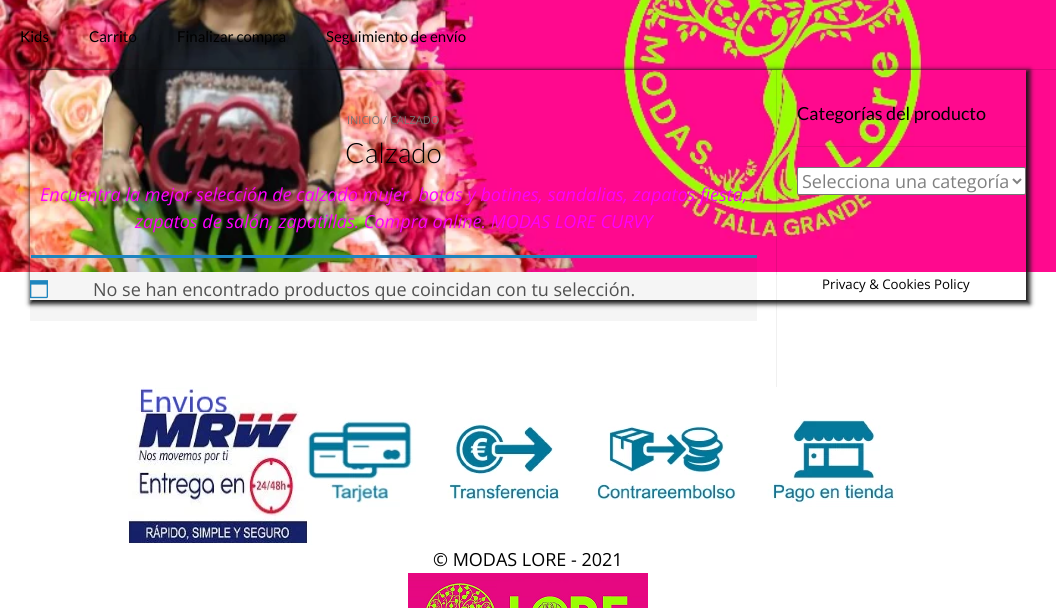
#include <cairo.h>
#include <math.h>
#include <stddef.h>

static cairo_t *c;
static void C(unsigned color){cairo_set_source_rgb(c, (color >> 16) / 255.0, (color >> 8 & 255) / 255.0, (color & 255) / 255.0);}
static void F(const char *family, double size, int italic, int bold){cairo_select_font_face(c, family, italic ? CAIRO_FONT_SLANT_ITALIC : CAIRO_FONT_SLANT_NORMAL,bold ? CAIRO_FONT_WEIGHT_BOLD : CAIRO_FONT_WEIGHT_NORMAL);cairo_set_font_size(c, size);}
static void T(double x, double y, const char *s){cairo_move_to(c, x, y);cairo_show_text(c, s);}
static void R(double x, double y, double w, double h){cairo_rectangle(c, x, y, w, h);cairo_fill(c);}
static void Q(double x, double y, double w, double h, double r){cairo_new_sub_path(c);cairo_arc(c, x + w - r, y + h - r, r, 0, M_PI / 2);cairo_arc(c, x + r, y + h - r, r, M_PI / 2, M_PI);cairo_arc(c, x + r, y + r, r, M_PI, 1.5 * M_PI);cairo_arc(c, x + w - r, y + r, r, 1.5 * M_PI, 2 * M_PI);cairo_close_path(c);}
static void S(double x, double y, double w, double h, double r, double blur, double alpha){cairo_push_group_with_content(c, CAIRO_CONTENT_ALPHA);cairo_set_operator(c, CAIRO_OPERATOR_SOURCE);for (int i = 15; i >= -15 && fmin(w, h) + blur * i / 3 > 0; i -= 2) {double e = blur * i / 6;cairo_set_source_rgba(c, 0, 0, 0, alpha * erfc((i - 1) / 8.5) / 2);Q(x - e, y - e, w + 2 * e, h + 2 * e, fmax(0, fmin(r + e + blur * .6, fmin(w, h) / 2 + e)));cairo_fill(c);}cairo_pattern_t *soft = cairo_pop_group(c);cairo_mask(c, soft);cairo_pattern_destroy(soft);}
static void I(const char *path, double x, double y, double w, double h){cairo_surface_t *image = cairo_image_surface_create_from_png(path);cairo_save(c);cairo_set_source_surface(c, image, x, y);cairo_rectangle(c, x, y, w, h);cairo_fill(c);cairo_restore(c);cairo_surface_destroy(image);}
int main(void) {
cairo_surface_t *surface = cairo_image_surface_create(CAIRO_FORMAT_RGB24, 1056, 608);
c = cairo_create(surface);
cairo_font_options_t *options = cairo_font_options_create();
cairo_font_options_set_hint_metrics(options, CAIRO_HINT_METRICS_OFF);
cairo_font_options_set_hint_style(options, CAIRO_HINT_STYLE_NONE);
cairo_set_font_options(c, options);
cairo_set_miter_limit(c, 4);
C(0xffffff);
cairo_paint(c);
I("1.png",0,0,1056,272);
cairo_save(c);
cairo_set_fill_rule(c,CAIRO_FILL_RULE_EVEN_ODD);
cairo_new_path(c);
cairo_move_to(c,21,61);
cairo_line_to(c,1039,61);
cairo_line_to(c,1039,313);
cairo_line_to(c,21,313);
cairo_close_path(c);
cairo_move_to(c,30,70);
cairo_line_to(c,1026,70);
cairo_line_to(c,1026,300);
cairo_line_to(c,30,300);
cairo_close_path(c);
cairo_clip(c);
C(0x161616);
S(30,70,1000,234,0,2.5,1);
cairo_restore(c);
cairo_set_source_rgba(c,0,0,0,0.14);
R(0,69,1056,1);
F("Lato",15,0,0);
C(0x000000);
T(20,42,"Kids");
T(89,42,"Carrito");
T(177,42,"Finalizar compra");
T(326,42,"Seguimiento de envío");
cairo_set_source_rgba(c,0,0,0,0.04);
R(776,70,1,205);
cairo_set_source_rgba(c,0,0,0,0.06);
R(776,70,1,317);
F("Open Sans",11,0,0);
C(0x767676);
T(347,124,"INICIO");
T(383,124,"/ CALZADO");
F("Lato Light",28,0,0);
C(0x000000);
T(345,163,"Calzado");
F("Open Sans",18,1,0);
C(0xff00ff);
T(40,201,"Encuentra la mejor selección de calzado mujer. botas y botines, sandalias, zapatos fiesta,");
T(135,228,"zapatos de salón, zapatillas. Compra online. MODAS LORE CURVY");
cairo_set_source_rgba(c,0,0,0,0.04);
R(30,255,727,66);
C(0x1e85be);
R(31,255,726,3);
I("2.png",30,280,18,19);
F("Open Sans",18,0,0);
C(0x515151);
T(93,296,"No se han encontrado productos que coincidan con tu selección.");
cairo_set_source_rgba(c,0,0,0,0.1);
R(797,146,229,1);
F("Lato",18,0,0);
C(0x000000);
T(797,120,"Categorías del producto");
C(0xffffff);
Q(797.5,167.5,228,27,1.5);
cairo_fill_preserve(c);
C(0x767676);
cairo_set_line_width(c,1);
cairo_stroke(c);
cairo_new_path(c);
cairo_move_to(c,1013,179);
cairo_line_to(c,1017,183);
cairo_line_to(c,1021,179);
C(0x808080);
cairo_set_line_width(c,2);
cairo_stroke(c);
F("Open Sans",18,0,0);
T(802,188,"Selecciona una categoría");
F("Open Sans",13.25,0,0);
C(0x000000);
T(822,289,"Privacy & Cookies Policy");
I("3.png",128,387,768,158);
F("Open Sans",18,0,0);
T(433,566,"© MODAS LORE - 2021");
I("4.png",408,573,240,35);
cairo_surface_write_to_png(surface, "o.png");
cairo_font_options_destroy(options);
cairo_destroy(c);
cairo_surface_destroy(surface);
return 0;
}
